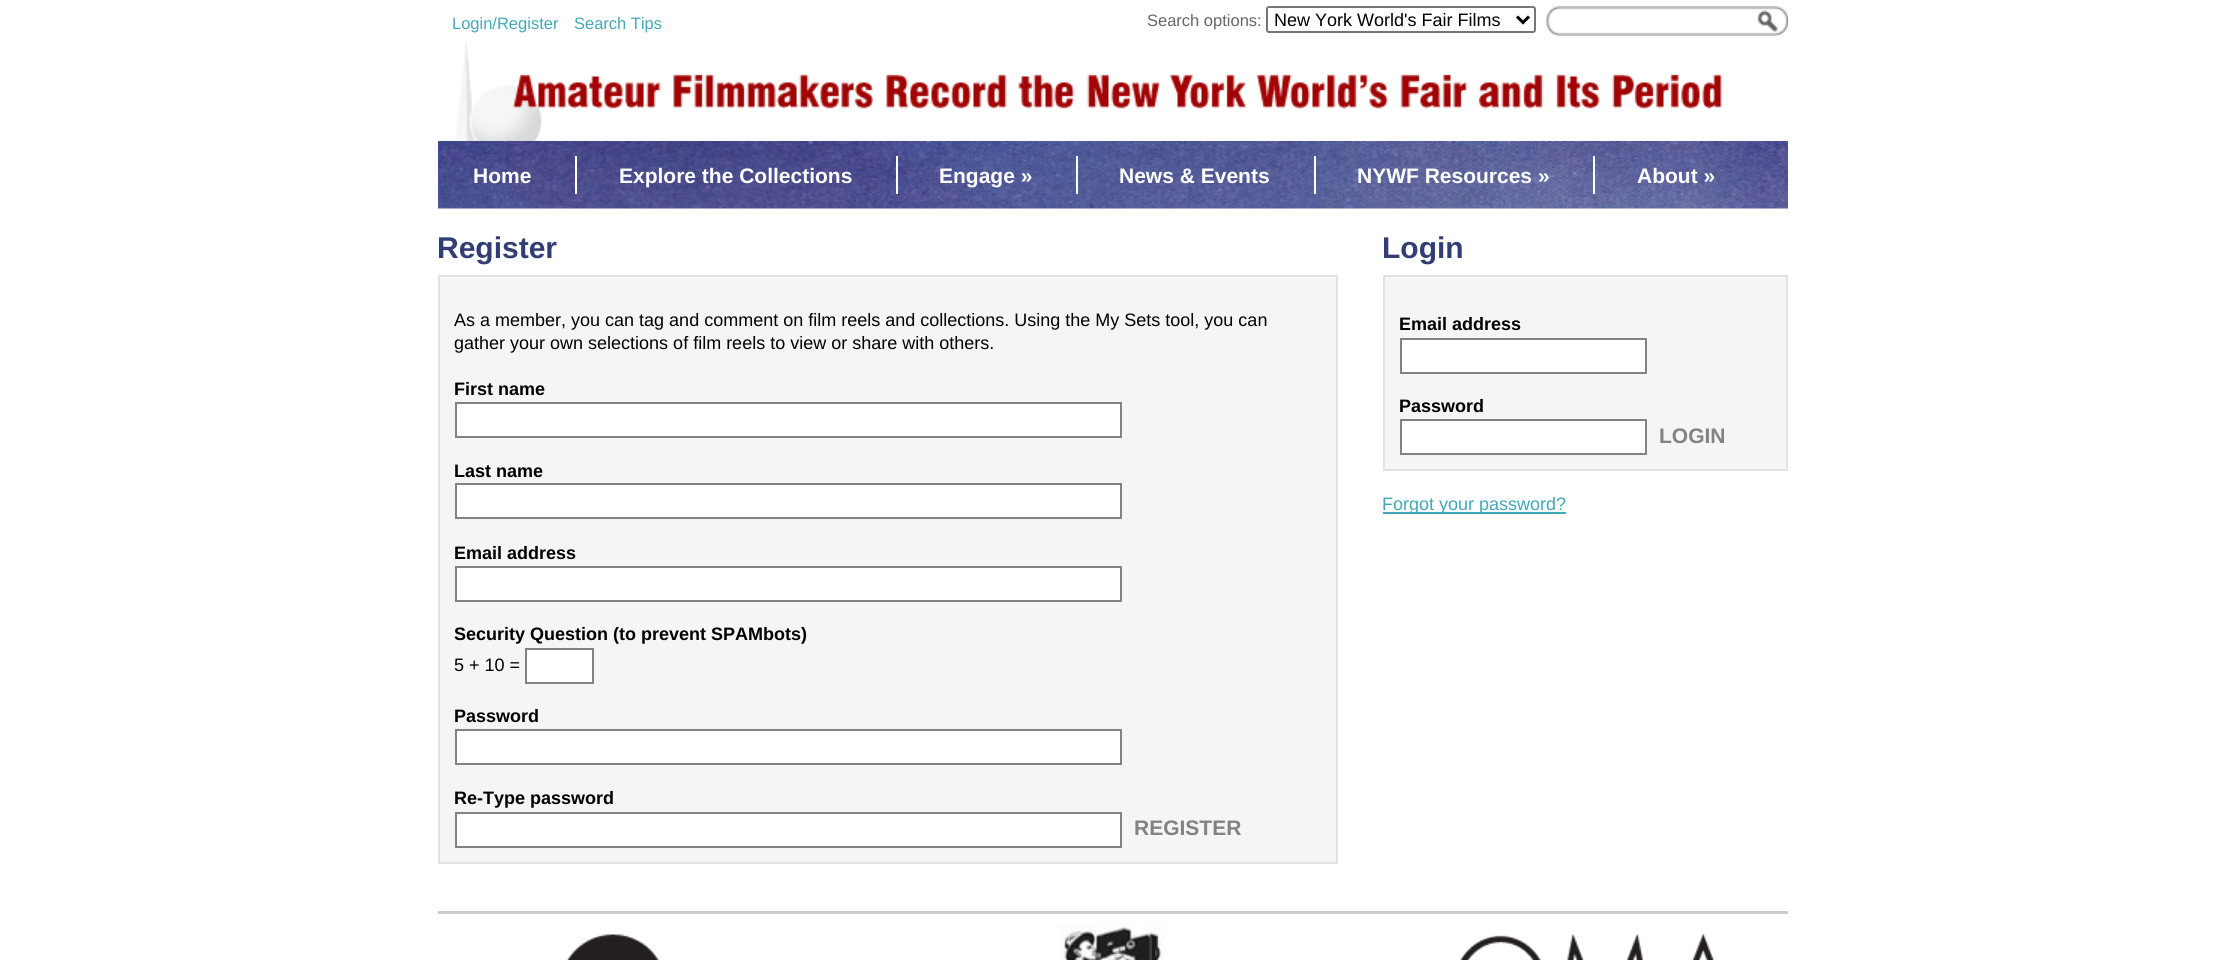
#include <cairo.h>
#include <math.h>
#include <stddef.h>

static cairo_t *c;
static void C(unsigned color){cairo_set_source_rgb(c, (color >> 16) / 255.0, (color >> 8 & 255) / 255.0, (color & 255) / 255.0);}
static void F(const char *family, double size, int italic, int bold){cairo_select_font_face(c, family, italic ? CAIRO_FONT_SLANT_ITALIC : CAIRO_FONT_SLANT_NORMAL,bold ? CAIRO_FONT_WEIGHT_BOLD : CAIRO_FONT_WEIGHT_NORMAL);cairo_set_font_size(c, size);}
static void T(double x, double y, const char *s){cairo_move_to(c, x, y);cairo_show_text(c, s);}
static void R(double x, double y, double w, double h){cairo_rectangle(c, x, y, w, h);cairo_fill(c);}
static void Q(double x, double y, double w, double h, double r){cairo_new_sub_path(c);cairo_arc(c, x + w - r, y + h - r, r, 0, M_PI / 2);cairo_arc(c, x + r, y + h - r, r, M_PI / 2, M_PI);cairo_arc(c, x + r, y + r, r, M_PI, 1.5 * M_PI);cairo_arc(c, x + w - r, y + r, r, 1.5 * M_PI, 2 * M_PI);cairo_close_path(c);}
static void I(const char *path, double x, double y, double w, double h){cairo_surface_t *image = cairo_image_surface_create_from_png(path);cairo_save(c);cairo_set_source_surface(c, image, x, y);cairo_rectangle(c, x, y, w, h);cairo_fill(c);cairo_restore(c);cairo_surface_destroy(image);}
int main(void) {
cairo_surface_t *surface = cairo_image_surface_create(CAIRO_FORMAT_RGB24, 2224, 960);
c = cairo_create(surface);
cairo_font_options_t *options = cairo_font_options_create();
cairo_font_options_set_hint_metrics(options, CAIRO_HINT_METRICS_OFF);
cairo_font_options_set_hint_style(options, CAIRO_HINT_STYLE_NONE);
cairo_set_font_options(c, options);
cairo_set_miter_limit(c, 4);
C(0xffffff);
cairo_paint(c);
F("Liberation Sans",16.5,0,0);
C(0x41a8ba);
T(452,29,"Login/Register");
T(574,29,"Search Tips");
C(0x666666);
T(1147,26,"Search options:");
Q(1267,7,268,25,2);
C(0x767676);
cairo_stroke(c);
cairo_new_path(c);
cairo_move_to(c,1517,16.5);
cairo_line_to(c,1523,22.5);
cairo_line_to(c,1529,16.5);
C(0x000000);
cairo_set_line_width(c,3);
cairo_stroke(c);
F("Liberation Sans",18,0,0);
T(1274,26,"New York World's Fair Films");
I("1.png",1546,6,242,30);
I("2.png",455,42,87,99);
I("3.png",512,74,1211,35);
I("4.png",438,141,1350,68);
F("Liberation Sans",21,0,1);
C(0xffffff);
T(473,183,"Home");
R(575,156,2,38);
T(619,183,"Explore the Collections");
R(896,156,2,38);
T(939,183,"Engage »");
R(1076,156,2,38);
T(1119,183,"News & Events");
R(1314,156,2,38);
T(1357,183,"NYWF Resources »");
R(1593,156,2,38);
T(1637,183,"About »");
F("Liberation Sans",30,0,1);
C(0x323d75);
T(437,258,"Register");
C(0xf5f5f5);
cairo_rectangle(c,439,276,898,587);
cairo_fill_preserve(c);
C(0xe2e2e2);
cairo_set_line_width(c,2);
cairo_stroke(c);
F("Liberation Sans",18,0,0);
C(0x000000);
T(454,326,"As a member, you can tag and comment on film reels and collections. Using the My Sets tool, you can");
T(454,349,"gather your own selections of film reels to view or share with others.");
F("Liberation Sans",18,0,1);
T(454,395,"First name");
C(0xffffff);
cairo_rectangle(c,456,403,665,34);
cairo_fill_preserve(c);
C(0x828282);
cairo_stroke(c);
C(0x000000);
T(454,477,"Last name");
C(0xffffff);
cairo_rectangle(c,456,484,665,34);
cairo_fill_preserve(c);
C(0x828282);
cairo_stroke(c);
C(0x000000);
T(454,559,"Email address");
C(0xffffff);
cairo_rectangle(c,456,567,665,34);
cairo_fill_preserve(c);
C(0x828282);
cairo_stroke(c);
C(0x000000);
T(454,640,"Security Question (to prevent SPAMbots)");
F("Liberation Sans",18,0,0);
T(454,671,"5 + 10 =");
C(0xffffff);
cairo_rectangle(c,526,649,67,34);
cairo_fill_preserve(c);
C(0x828282);
cairo_stroke(c);
F("Liberation Sans",18,0,1);
C(0x000000);
T(454,722,"Password");
C(0xffffff);
cairo_rectangle(c,456,730,665,34);
cairo_fill_preserve(c);
C(0x828282);
cairo_stroke(c);
C(0x000000);
T(454,804,"Re-Type password");
C(0xffffff);
cairo_rectangle(c,456,813,665,34);
cairo_fill_preserve(c);
C(0x828282);
cairo_stroke(c);
F("Liberation Sans",21,0,1);
T(1134,835,"REGISTER");
F("Liberation Sans",30,0,1);
C(0x323d75);
T(1382,258,"Login");
C(0xf5f5f5);
cairo_rectangle(c,1384,276,403,194);
cairo_fill_preserve(c);
C(0xe2e2e2);
cairo_stroke(c);
F("Liberation Sans",18,0,1);
C(0x000000);
T(1399,330,"Email address");
C(0xffffff);
cairo_rectangle(c,1401,339,245,34);
cairo_fill_preserve(c);
C(0x828282);
cairo_stroke(c);
C(0x000000);
T(1399,412,"Password");
C(0xffffff);
cairo_rectangle(c,1401,420,245,34);
cairo_fill_preserve(c);
C(0x828282);
cairo_stroke(c);
F("Liberation Sans",21,0,1);
T(1659,443,"LOGIN");
C(0x41a8ba);
R(1383,512,183,2);
F("Liberation Sans",18,0,0);
T(1382,510,"Forgot your password?");
C(0xcccccc);
R(438,911,1350,3);
I("5.png",566,934,93,26);
I("6.png",1059,923,107,37);
I("7.png",1460,934,255,26);
cairo_surface_write_to_png(surface, "o.png");
cairo_font_options_destroy(options);
cairo_destroy(c);
cairo_surface_destroy(surface);
return 0;
}
